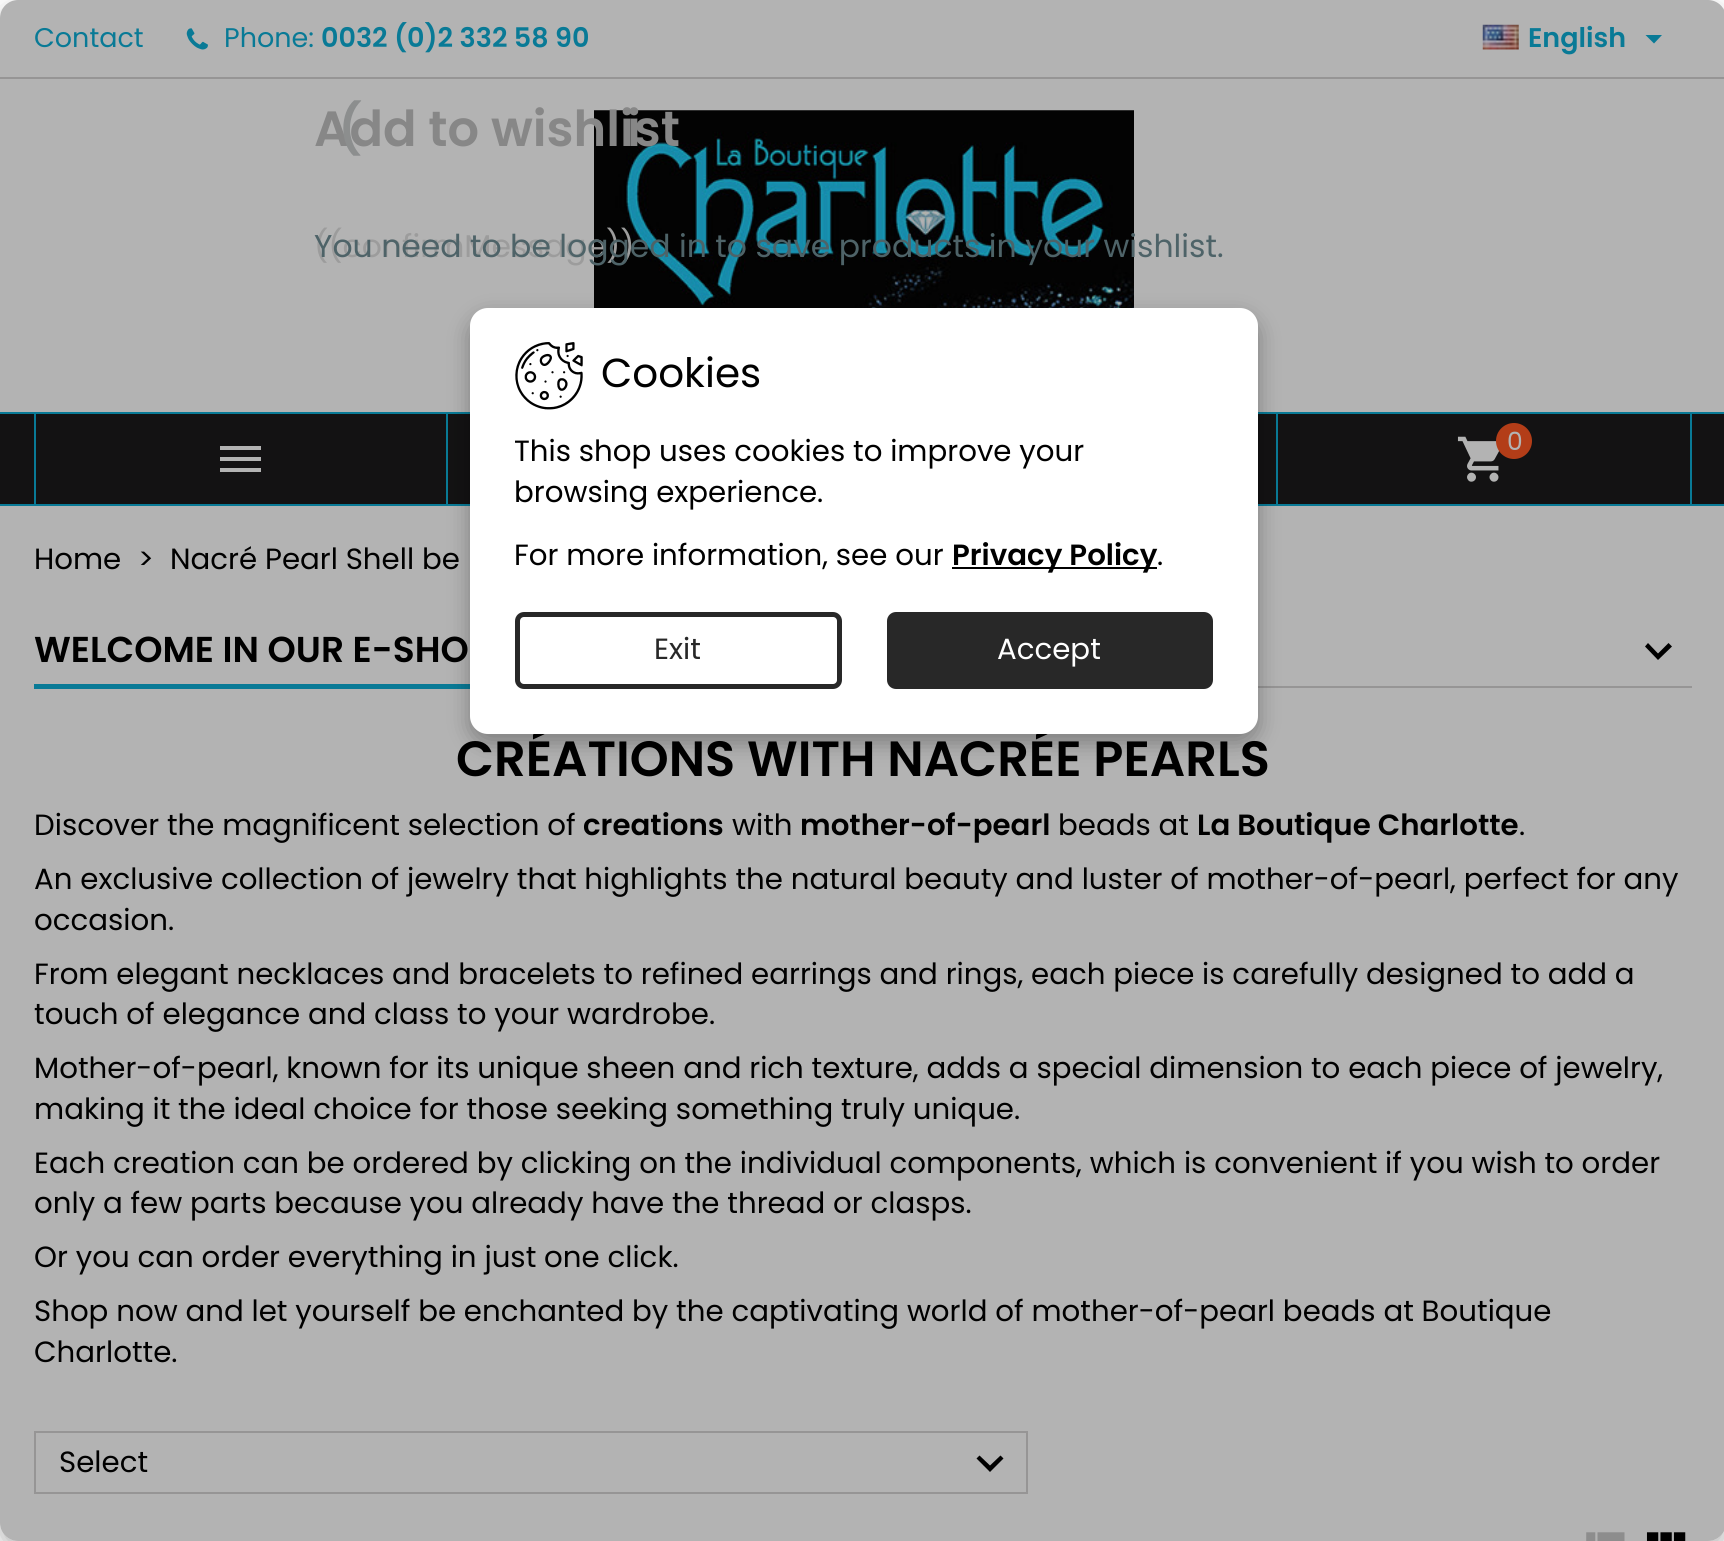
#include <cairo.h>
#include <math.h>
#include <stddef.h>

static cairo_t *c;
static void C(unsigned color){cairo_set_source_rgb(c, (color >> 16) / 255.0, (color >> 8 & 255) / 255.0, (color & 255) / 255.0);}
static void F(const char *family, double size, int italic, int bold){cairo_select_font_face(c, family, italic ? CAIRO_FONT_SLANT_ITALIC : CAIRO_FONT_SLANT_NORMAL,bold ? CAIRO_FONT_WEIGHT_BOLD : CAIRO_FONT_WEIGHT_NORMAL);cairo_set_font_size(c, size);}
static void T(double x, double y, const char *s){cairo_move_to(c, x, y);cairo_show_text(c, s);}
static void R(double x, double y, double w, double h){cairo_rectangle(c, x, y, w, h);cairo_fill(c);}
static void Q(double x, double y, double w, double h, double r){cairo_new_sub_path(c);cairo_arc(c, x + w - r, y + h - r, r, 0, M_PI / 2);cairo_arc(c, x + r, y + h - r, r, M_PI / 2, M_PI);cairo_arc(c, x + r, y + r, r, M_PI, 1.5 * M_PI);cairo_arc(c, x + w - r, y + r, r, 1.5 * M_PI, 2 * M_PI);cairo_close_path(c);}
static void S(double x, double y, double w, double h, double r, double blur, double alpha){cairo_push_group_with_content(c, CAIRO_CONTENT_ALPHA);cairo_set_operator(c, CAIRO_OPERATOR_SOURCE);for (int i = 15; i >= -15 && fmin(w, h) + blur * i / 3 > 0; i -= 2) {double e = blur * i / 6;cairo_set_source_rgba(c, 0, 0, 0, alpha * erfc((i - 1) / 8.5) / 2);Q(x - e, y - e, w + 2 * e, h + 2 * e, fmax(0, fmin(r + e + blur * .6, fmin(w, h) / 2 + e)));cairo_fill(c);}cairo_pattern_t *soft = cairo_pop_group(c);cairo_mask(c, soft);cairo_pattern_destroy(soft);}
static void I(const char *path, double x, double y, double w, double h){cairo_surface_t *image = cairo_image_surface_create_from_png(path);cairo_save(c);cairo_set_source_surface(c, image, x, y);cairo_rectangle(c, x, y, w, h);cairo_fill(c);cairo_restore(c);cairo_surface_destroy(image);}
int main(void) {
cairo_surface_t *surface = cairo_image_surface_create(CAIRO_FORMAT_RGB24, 1724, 1541);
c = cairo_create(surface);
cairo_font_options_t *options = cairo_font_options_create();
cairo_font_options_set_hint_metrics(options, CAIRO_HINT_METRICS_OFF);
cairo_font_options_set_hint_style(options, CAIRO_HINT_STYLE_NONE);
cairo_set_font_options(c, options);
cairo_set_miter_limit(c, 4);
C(0xffffff);
cairo_paint(c);
C(0xd6d4d4);
R(0,77,1724,2);
F("Poppins",27,0,0);
C(0x0daed6);
T(34,47,"Contact");
I("1.png",186,28,22,22);
T(224,47,"Phone:");
F("Poppins SemiBold",27,0,0);
T(321,47,"0032 (0)2 332 58 90");
I("2.png",1482,24,37,26);
T(1528,47,"English");
cairo_new_path(c);
cairo_move_to(c,1645.5,35);
cairo_line_to(c,1662,35);
cairo_line_to(c,1654,43.5);
cairo_close_path(c);
cairo_fill(c);
I("3.png",594,110,540,198);
C(0x1b1a1b);
R(0,414,1724,90);
C(0x0daed6);
R(0,412,1724,2);
R(0,504,1724,2);
R(446,414,2,90);
R(34,414,2,90);
C(0xffffff);
cairo_new_path(c);
cairo_move_to(c,220,446);
cairo_line_to(c,261,446);
cairo_line_to(c,261,450);
cairo_line_to(c,220,450);
cairo_close_path(c);
cairo_move_to(c,220,461);
cairo_line_to(c,220,457);
cairo_line_to(c,261,457);
cairo_line_to(c,261,461);
cairo_close_path(c);
cairo_move_to(c,220,472);
cairo_line_to(c,220,468);
cairo_line_to(c,261,468);
cairo_line_to(c,261,472);
cairo_close_path(c);
cairo_fill(c);
C(0x0daed6);
R(1276,414,2,90);
R(1690,414,2,90);
I("4.png",1457,436,42,46);
C(0xff5722);
cairo_arc(c,1514,441,18,0,2 * M_PI);
cairo_fill(c);
F("Poppins",25,0,0);
C(0xffffff);
T(1507,450,"0");
F("Poppins SemiBold",49.5,0,0);
C(0xc0c0c0);
T(314,146,"Add to wishlist");
C(0xc7cacb);
T(338,146,"(");
F("Poppins",31.5,0,0);
C(0xdedede);
T(314,257,"((confirmMessage))");
F("Poppins SemiBold",49.5,0,0);
C(0xc0c0c0);
T(627,146,"i");
F("Poppins",31.5,0,0);
C(0x6f8d94);
T(314,257,"You need to be logged in to save products in your wishlist.");
C(0xd6d4d4);
R(1258,686,434,2);
C(0x0daed6);
R(34,684,436,5);
C(0x000000);
cairo_new_path(c);
cairo_move_to(c,1648,643);
cairo_line_to(c,1658,653.5);
cairo_line_to(c,1668.5,643);
cairo_line_to(c,1672,646.5);
cairo_line_to(c,1658,660);
cairo_line_to(c,1645,646.5);
cairo_close_path(c);
cairo_fill(c);
cairo_rectangle(c,35,1432,992,61);
C(0xd6d4d4);
cairo_stroke(c);
C(0x000000);
cairo_new_path(c);
cairo_move_to(c,979.5,1455.5);
cairo_line_to(c,990,1465.5);
cairo_line_to(c,1000.5,1455.5);
cairo_line_to(c,1003.5,1458.5);
cairo_line_to(c,990,1472);
cairo_line_to(c,976.5,1458.5);
cairo_close_path(c);
cairo_fill(c);
I("6.png",1586,1532,39,9);
I("7.png",1646,1532,40,9);
cairo_save(c);
cairo_set_fill_rule(c,CAIRO_FILL_RULE_EVEN_ODD);
cairo_new_path(c);
cairo_move_to(c,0,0);
cairo_line_to(c,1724,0);
cairo_line_to(c,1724,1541);
cairo_line_to(c,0,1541);
cairo_close_path(c);
cairo_move_to(c,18,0);
cairo_line_to(c,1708,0);
cairo_curve_to(c,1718,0,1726,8,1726,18);
cairo_line_to(c,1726,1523);
cairo_curve_to(c,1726,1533,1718,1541,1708,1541);
cairo_line_to(c,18,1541);
cairo_curve_to(c,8,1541,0,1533,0,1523);
cairo_line_to(c,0,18);
cairo_curve_to(c,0,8,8,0,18,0);
cairo_close_path(c);
cairo_clip(c);
C(0x000000);
S(0,9,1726,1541,18,11,.3);
cairo_restore(c);
F("Poppins",29.25,0,0);
T(34,569,"Home");
T(138,569,">");
T(170,569,"Nacré Pearl Shell be");
F("Poppins SemiBold",36,0,0);
T(34,662,"WELCOME IN OUR E-SHO");
F("Poppins SemiBold",49.5,0,0);
T(456,776,"CRÉATIONS WITH NACRÉE PEARLS");
F("Poppins",29.25,0,0);
T(34,835,"Discover the magnificent selection of");
F("Poppins SemiBold",29.25,0,0);
T(583,835,"creations");
F("Poppins",29.25,0,0);
T(732,835,"with");
F("Poppins SemiBold",29.25,0,0);
T(800,835,"mother-of-pearl");
F("Poppins",29.25,0,0);
T(1058,835,"beads at");
F("Poppins SemiBold",29.25,0,0);
T(1197,835,"La Boutique Charlotte");
F("Poppins",29.25,0,0);
T(1519,835,".");
T(34,889,"An exclusive collection of jewelry that highlights the natural beauty and luster of mother-of-pearl, perfect for any");
T(34,930,"occasion.");
T(34,984,"From elegant necklaces and bracelets to refined earrings and rings, each piece is carefully designed to add a");
T(34,1024,"touch of elegance and class to your wardrobe.");
T(34,1078,"Mother-of-pearl, known for its unique sheen and rich texture, adds a special dimension to each piece of jewelry,");
T(34,1119,"making it the ideal choice for those seeking something truly unique.");
T(34,1173,"Each creation can be ordered by clicking on the individual components, which is convenient if you wish to order");
T(34,1213,"only a few parts because you already have the thread or clasps.");
T(34,1267,"Or you can order everything in just one click.");
T(34,1321,"Shop now and let yourself be enchanted by the captivating world of mother-of-pearl beads at Boutique");
T(34,1362,"Charlotte.");
T(59,1472,"Select");
cairo_set_source_rgba(c,0,0,0,0.3);
Q(0,0,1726,1541,18);
cairo_fill(c);
C(0x000000);
S(470,317,788,426,18,11,.3);
C(0xffffff);
Q(470,308,788,426,18);
cairo_fill(c);
I("5.png",515,342,68,68);
F("Poppins",40.5,0,0);
C(0x000000);
T(601,387,"Cookies");
F("Poppins",29.25,0,0);
T(514,461,"This shop uses cookies to improve your");
T(514,502,"browsing experience.");
T(514,565,"For more information, see our");
R(952,567,205,2);
F("Poppins SemiBold",29.25,0,0);
T(952,565,"Privacy Policy");
F("Poppins",29.25,0,0);
T(1157,565,".");
Q(517.5,614.5,322,72,6.5);
C(0x282828);
cairo_set_line_width(c,5);
cairo_stroke(c);
T(654,659,"Exit");
Q(889.5,614.5,321,72,6.5);
cairo_fill_preserve(c);
cairo_stroke(c);
C(0xffffff);
T(997,659,"Accept");
cairo_surface_write_to_png(surface, "o.png");
cairo_font_options_destroy(options);
cairo_destroy(c);
cairo_surface_destroy(surface);
return 0;
}
